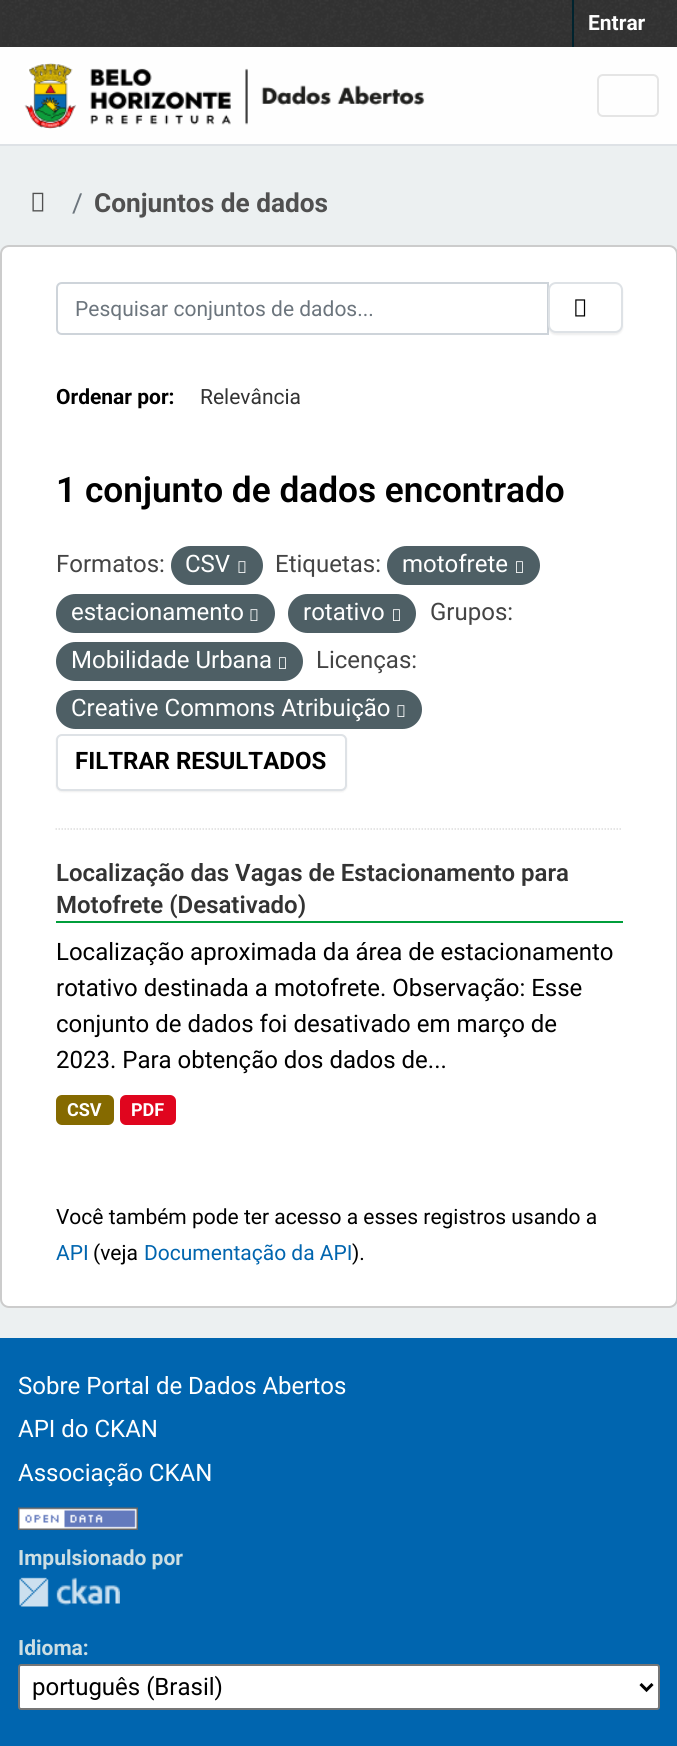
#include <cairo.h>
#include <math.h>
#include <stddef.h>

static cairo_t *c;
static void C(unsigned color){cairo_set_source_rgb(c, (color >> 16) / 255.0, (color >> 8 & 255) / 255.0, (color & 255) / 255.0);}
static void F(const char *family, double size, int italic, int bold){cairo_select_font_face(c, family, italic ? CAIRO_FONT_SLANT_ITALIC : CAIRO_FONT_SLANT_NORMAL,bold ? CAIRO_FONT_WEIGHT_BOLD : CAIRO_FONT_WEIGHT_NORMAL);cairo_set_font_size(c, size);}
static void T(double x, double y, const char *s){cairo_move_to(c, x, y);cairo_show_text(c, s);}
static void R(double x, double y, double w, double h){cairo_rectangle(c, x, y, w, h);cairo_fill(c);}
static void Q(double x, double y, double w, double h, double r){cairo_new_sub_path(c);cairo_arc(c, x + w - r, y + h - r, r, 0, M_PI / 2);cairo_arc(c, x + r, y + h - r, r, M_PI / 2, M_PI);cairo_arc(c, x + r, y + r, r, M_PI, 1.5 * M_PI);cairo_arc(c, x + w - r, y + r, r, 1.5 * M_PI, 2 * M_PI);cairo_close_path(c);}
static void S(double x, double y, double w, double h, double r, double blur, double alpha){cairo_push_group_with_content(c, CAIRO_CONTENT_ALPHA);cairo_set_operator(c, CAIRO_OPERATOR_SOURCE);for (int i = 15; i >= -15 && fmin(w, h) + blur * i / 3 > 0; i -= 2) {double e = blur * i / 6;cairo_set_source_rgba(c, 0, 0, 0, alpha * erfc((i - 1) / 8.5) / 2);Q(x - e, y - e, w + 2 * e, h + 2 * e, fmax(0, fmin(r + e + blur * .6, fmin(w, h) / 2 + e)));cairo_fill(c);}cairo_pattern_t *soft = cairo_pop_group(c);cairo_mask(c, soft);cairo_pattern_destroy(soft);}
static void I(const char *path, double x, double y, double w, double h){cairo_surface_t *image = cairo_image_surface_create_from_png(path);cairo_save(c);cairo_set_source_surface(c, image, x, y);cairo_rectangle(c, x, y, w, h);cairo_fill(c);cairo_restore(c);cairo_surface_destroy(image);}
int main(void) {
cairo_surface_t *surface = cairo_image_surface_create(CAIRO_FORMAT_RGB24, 677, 1746);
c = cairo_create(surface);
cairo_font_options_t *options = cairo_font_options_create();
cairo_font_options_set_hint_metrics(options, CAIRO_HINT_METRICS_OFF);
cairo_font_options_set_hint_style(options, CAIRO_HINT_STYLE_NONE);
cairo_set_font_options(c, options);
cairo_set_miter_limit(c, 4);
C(0xecf0f1);
cairo_paint(c);
C(0x333333);
R(0,0,677,47);
I("1.png",2,0,675,46);
C(0x00232e);
R(572,0,2,47);
F("Roboto",21,0,1);
C(0xffffff);
T(588,30,"Entrar");
C(0xfefefe);
R(0,47,677,97);
C(0xdee2e6);
R(0,144,677,2);
I("2.png",24,63,401,66);
Q(598,75,60,41,5);
C(0xe5e5e5);
cairo_stroke(c);
I("3.png",32,192,12,20);
F("Roboto",26.25,0,0);
C(0x6c757d);
T(72,212,"/");
F("Roboto",26.25,0,1);
C(0x505050);
T(94,212,"Conjuntos de dados");
C(0xffffff);
Q(1,246,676,1061,8);
cairo_fill_preserve(c);
C(0xcccccc);
cairo_stroke(c);
cairo_new_path(c);
cairo_move_to(c,55.5,829);
cairo_line_to(c,622.5,829);
C(0xdddddd);
cairo_set_line_width(c,1.5);
cairo_set_dash(c,(double[]){1.5,1.5},2,0);
cairo_stroke(c);
cairo_new_path(c);
cairo_move_to(c,62,283);
cairo_line_to(c,548,283);
cairo_line_to(c,548,334);
cairo_line_to(c,62,334);
cairo_curve_to(c,59,334,57,332,57,329);
cairo_line_to(c,57,288);
cairo_curve_to(c,57,285,59,283,62,283);
cairo_close_path(c);
C(0xced4da);
cairo_set_line_width(c,2);
cairo_set_dash(c,NULL,0,0);
cairo_stroke(c);
cairo_save(c);
cairo_rectangle(c,75,296,455,24);
cairo_clip(c);
F("Roboto",21,0,0);
C(0x6c757d);
T(75,316,"Pesquisar conjuntos de dados...");
cairo_restore(c);
C(0x000000);
S(548,284,75,51,8,1,.07);
C(0xffffff);
Q(549,283,73,49,7);
cairo_fill_preserve(c);
C(0xdee2e6);
cairo_stroke(c);
I("4.png",575,299,11,18);
F("Roboto",21,0,1);
C(0x000000);
T(56,404,"Ordenar por:");
F("Roboto",21,0,0);
C(0x333333);
T(200,404,"Relevância");
F("Roboto SemiBold",35.25,0,0);
C(0x000000);
T(56,502,"1 conjunto de dados encontrado");
F("Roboto",24,0,0);
C(0x444444);
T(56,572,"Formatos:");
C(0x4e5f65);
Q(171,546,92,39,19.5);
cairo_fill(c);
C(0xffffff);
T(185,572,"CSV");
I("5.png",238,561,8,12);
C(0x444444);
T(275,572,"Etiquetas:");
C(0x4e5f65);
Q(387,546,153,39,19.5);
cairo_fill(c);
C(0xffffff);
T(402,572,"motofrete");
I("6.png",516,561,7,12);
C(0x4e5f65);
Q(56,594,219,39,19.5);
cairo_fill(c);
C(0xffffff);
T(71,620,"estacionamento");
I("5.png",250,609,8,12);
C(0x4e5f65);
Q(288,594,128,39,19.5);
cairo_fill(c);
C(0xffffff);
T(303,620,"rotativo");
I("6.png",393,609,7,12);
C(0x444444);
T(430,620,"Grupos:");
C(0x4e5f65);
Q(56,642,247,39,19.5);
cairo_fill(c);
C(0xffffff);
T(71,668,"Mobilidade Urbana");
I("6.png",279,657,7,12);
C(0x444444);
T(316,668,"Licenças:");
C(0x4e5f65);
Q(56,690,366,39,19.5);
cairo_fill(c);
C(0xffffff);
T(71,716,"Creative Commons Atribuição");
I("5.png",397,705,8,12);
C(0x000000);
S(56,735,291,57,6,1,.07);
C(0xffffff);
Q(57,735,289,55,5);
cairo_fill_preserve(c);
C(0xdee2e6);
cairo_stroke(c);
F("Roboto",24,0,1);
C(0x000000);
T(75,769,"FILTRAR RESULTADOS");
C(0x009e3b);
R(56,921,567,2);
F("Roboto SemiBold",24,0,0);
C(0x333333);
T(56,881,"Localização das Vagas de Estacionamento para");
T(56,913,"Motofrete (Desativado)");
F("Roboto",24,0,0);
C(0x000000);
T(56,960,"Localização aproximada da área de estacionamento");
T(56,996,"rotativo destinada a motofrete. Observação: Esse");
T(56,1032,"conjunto de dados foi desativado em março de");
T(56,1068,"2023. Para obtenção dos dados de...");
C(0x856a00);
Q(56,1095,58,30,6);
cairo_fill(c);
F("Roboto",18,0,1);
C(0xffffff);
T(67,1116,"CSV");
C(0xe0051e);
Q(120,1095,56,30,6);
cairo_fill(c);
C(0xffffff);
T(131,1116,"PDF");
F("Roboto",21,0,0);
C(0x000000);
T(56,1224,"Você também pode ter acesso a esses registros usando a");
C(0x0065af);
T(56,1260,"API");
C(0x000000);
T(93,1260,"(veja");
C(0x0065af);
T(144,1260,"Documentação da API");
C(0x000000);
T(352,1260,").");
C(0x0065af);
R(0,1338,677,408);
F("Roboto",24,0,0);
C(0xffffff);
T(18,1394,"Sobre Portal de Dados Abertos");
T(18,1437,"API do CKAN");
T(18,1481,"Associação CKAN");
I("7.png",18,1507,120,23);
F("Roboto",21,0,1);
C(0xccdee3);
T(18,1565,"Impulsionado por");
I("8.png",19,1577,101,30);
T(18,1655,"Idioma:");
C(0xffffff);
Q(19,1665,640,44,2);
cairo_fill_preserve(c);
C(0x767676);
cairo_stroke(c);
cairo_new_path(c);
cairo_move_to(c,640.5,1684);
cairo_line_to(c,646.5,1690);
cairo_line_to(c,652.5,1684);
C(0x000000);
cairo_set_line_width(c,3);
cairo_stroke(c);
F("Roboto",24,0,0);
T(32,1695,"português (Brasil)");
cairo_surface_write_to_png(surface, "o.png");
cairo_font_options_destroy(options);
cairo_destroy(c);
cairo_surface_destroy(surface);
return 0;
}
